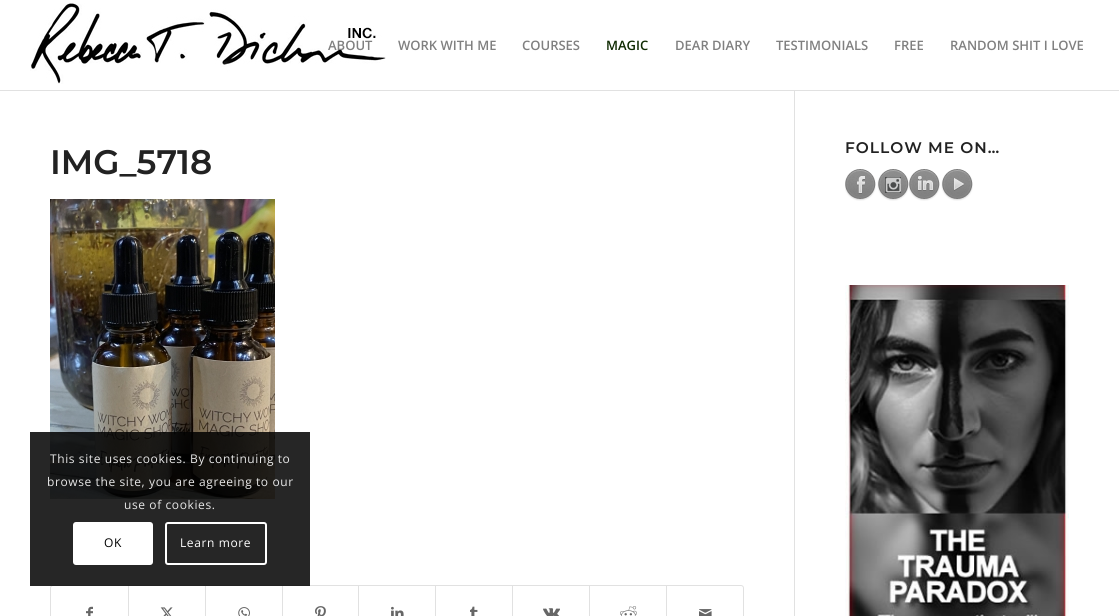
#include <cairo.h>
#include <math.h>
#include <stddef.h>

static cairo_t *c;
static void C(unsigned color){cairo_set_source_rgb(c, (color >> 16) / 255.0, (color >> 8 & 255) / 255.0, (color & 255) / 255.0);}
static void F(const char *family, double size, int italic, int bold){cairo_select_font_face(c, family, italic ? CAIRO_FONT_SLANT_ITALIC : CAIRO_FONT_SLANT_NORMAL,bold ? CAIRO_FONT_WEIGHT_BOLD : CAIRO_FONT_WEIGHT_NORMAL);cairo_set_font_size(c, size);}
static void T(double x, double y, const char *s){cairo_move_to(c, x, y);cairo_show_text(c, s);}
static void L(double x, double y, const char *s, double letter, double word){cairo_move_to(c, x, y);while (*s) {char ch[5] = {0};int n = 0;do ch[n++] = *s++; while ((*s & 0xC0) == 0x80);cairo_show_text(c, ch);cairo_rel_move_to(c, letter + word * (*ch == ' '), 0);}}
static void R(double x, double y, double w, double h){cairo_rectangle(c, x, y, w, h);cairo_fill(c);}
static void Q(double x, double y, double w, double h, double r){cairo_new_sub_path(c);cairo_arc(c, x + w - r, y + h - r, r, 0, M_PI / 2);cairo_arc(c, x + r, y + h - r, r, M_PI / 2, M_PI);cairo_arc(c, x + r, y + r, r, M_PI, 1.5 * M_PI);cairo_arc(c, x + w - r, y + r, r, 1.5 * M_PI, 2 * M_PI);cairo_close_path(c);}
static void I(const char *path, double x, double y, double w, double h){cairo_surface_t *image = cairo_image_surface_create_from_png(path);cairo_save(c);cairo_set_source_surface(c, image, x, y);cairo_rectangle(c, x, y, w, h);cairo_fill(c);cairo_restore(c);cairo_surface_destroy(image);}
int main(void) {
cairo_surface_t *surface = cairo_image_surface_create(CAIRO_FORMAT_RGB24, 1119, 616);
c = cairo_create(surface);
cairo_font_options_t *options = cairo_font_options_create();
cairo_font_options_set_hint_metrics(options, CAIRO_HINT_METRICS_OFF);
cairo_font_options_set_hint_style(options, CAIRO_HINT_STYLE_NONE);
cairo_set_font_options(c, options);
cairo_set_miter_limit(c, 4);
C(0xffffff);
cairo_paint(c);
C(0xe1e1e1);
R(794,90,1,526);
R(0,90,1119,1);
I("1.png",30,3,356,81);
F("Open Sans SemiBold",13,0,0);
C(0x808080);
T(328,50,"ABOUT");
T(398,50,"WORK WITH ME");
T(522,50,"COURSES");
C(0x0e2a01);
T(606,50,"MAGIC");
C(0x808080);
T(675,50,"DEAR DIARY");
T(776,50,"TESTIMONIALS");
T(894,50,"FREE");
T(950,50,"RANDOM SHIT I LOVE");
F("Montserrat SemiBold",34,0,0);
C(0x222222);
T(50,174,"IMG_5718");
I("2.png",50,199,225,300);
Q(50.5,585.5,693,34,2.5);
C(0xe1e1e1);
cairo_set_line_width(c,1);
cairo_stroke(c);
I("3.png",86,606,7,10);
R(128,586,1,30);
I("4.png",160,607,13,9);
R(205,586,1,30);
I("5.png",238,607,12,9);
R(282,586,1,30);
I("6.png",315,606,11,10);
R(358,586,1,30);
I("7.png",391,606,13,10);
R(435,586,1,30);
I("8.png",470,606,8,10);
R(512,586,1,30);
I("9.png",543,608,17,8);
R(589,586,1,30);
I("10.png",620,606,17,10);
R(666,586,1,30);
I("11.png",699,609,13,7);
F("Montserrat SemiBold",15.4,0,0);
C(0x222222);
L(845,153,"FOLLOW ME ON…",1,0);
I("12.png",845,169,31,32);
I("13.png",877,169,32,32);
I("14.png",909,169,31,32);
I("15.png",941,169,32,32);
I("16.png",845,285,224,331);
cairo_set_source_rgba(c,0,0,0,0.85);
R(30,432,280,154);
F("Open Sans",12,0,0);
C(0xe7e7e7);
L(50,463,"This site uses cookies. By continuing to",.6,0);
L(47,486,"browse the site, you are agreeing to our",.6,0);
L(124,509,"use of cookies.",.6,0);
C(0xffffff);
Q(73,522,80,43,3);
cairo_fill(c);
C(0x000000);
L(104,547,"OK",.6,0);
Q(166,523,100,41,2);
C(0xffffff);
cairo_set_line_width(c,2);
cairo_stroke(c);
L(180,547,"Learn more",.6,0);
cairo_surface_write_to_png(surface, "o.png");
cairo_font_options_destroy(options);
cairo_destroy(c);
cairo_surface_destroy(surface);
return 0;
}
